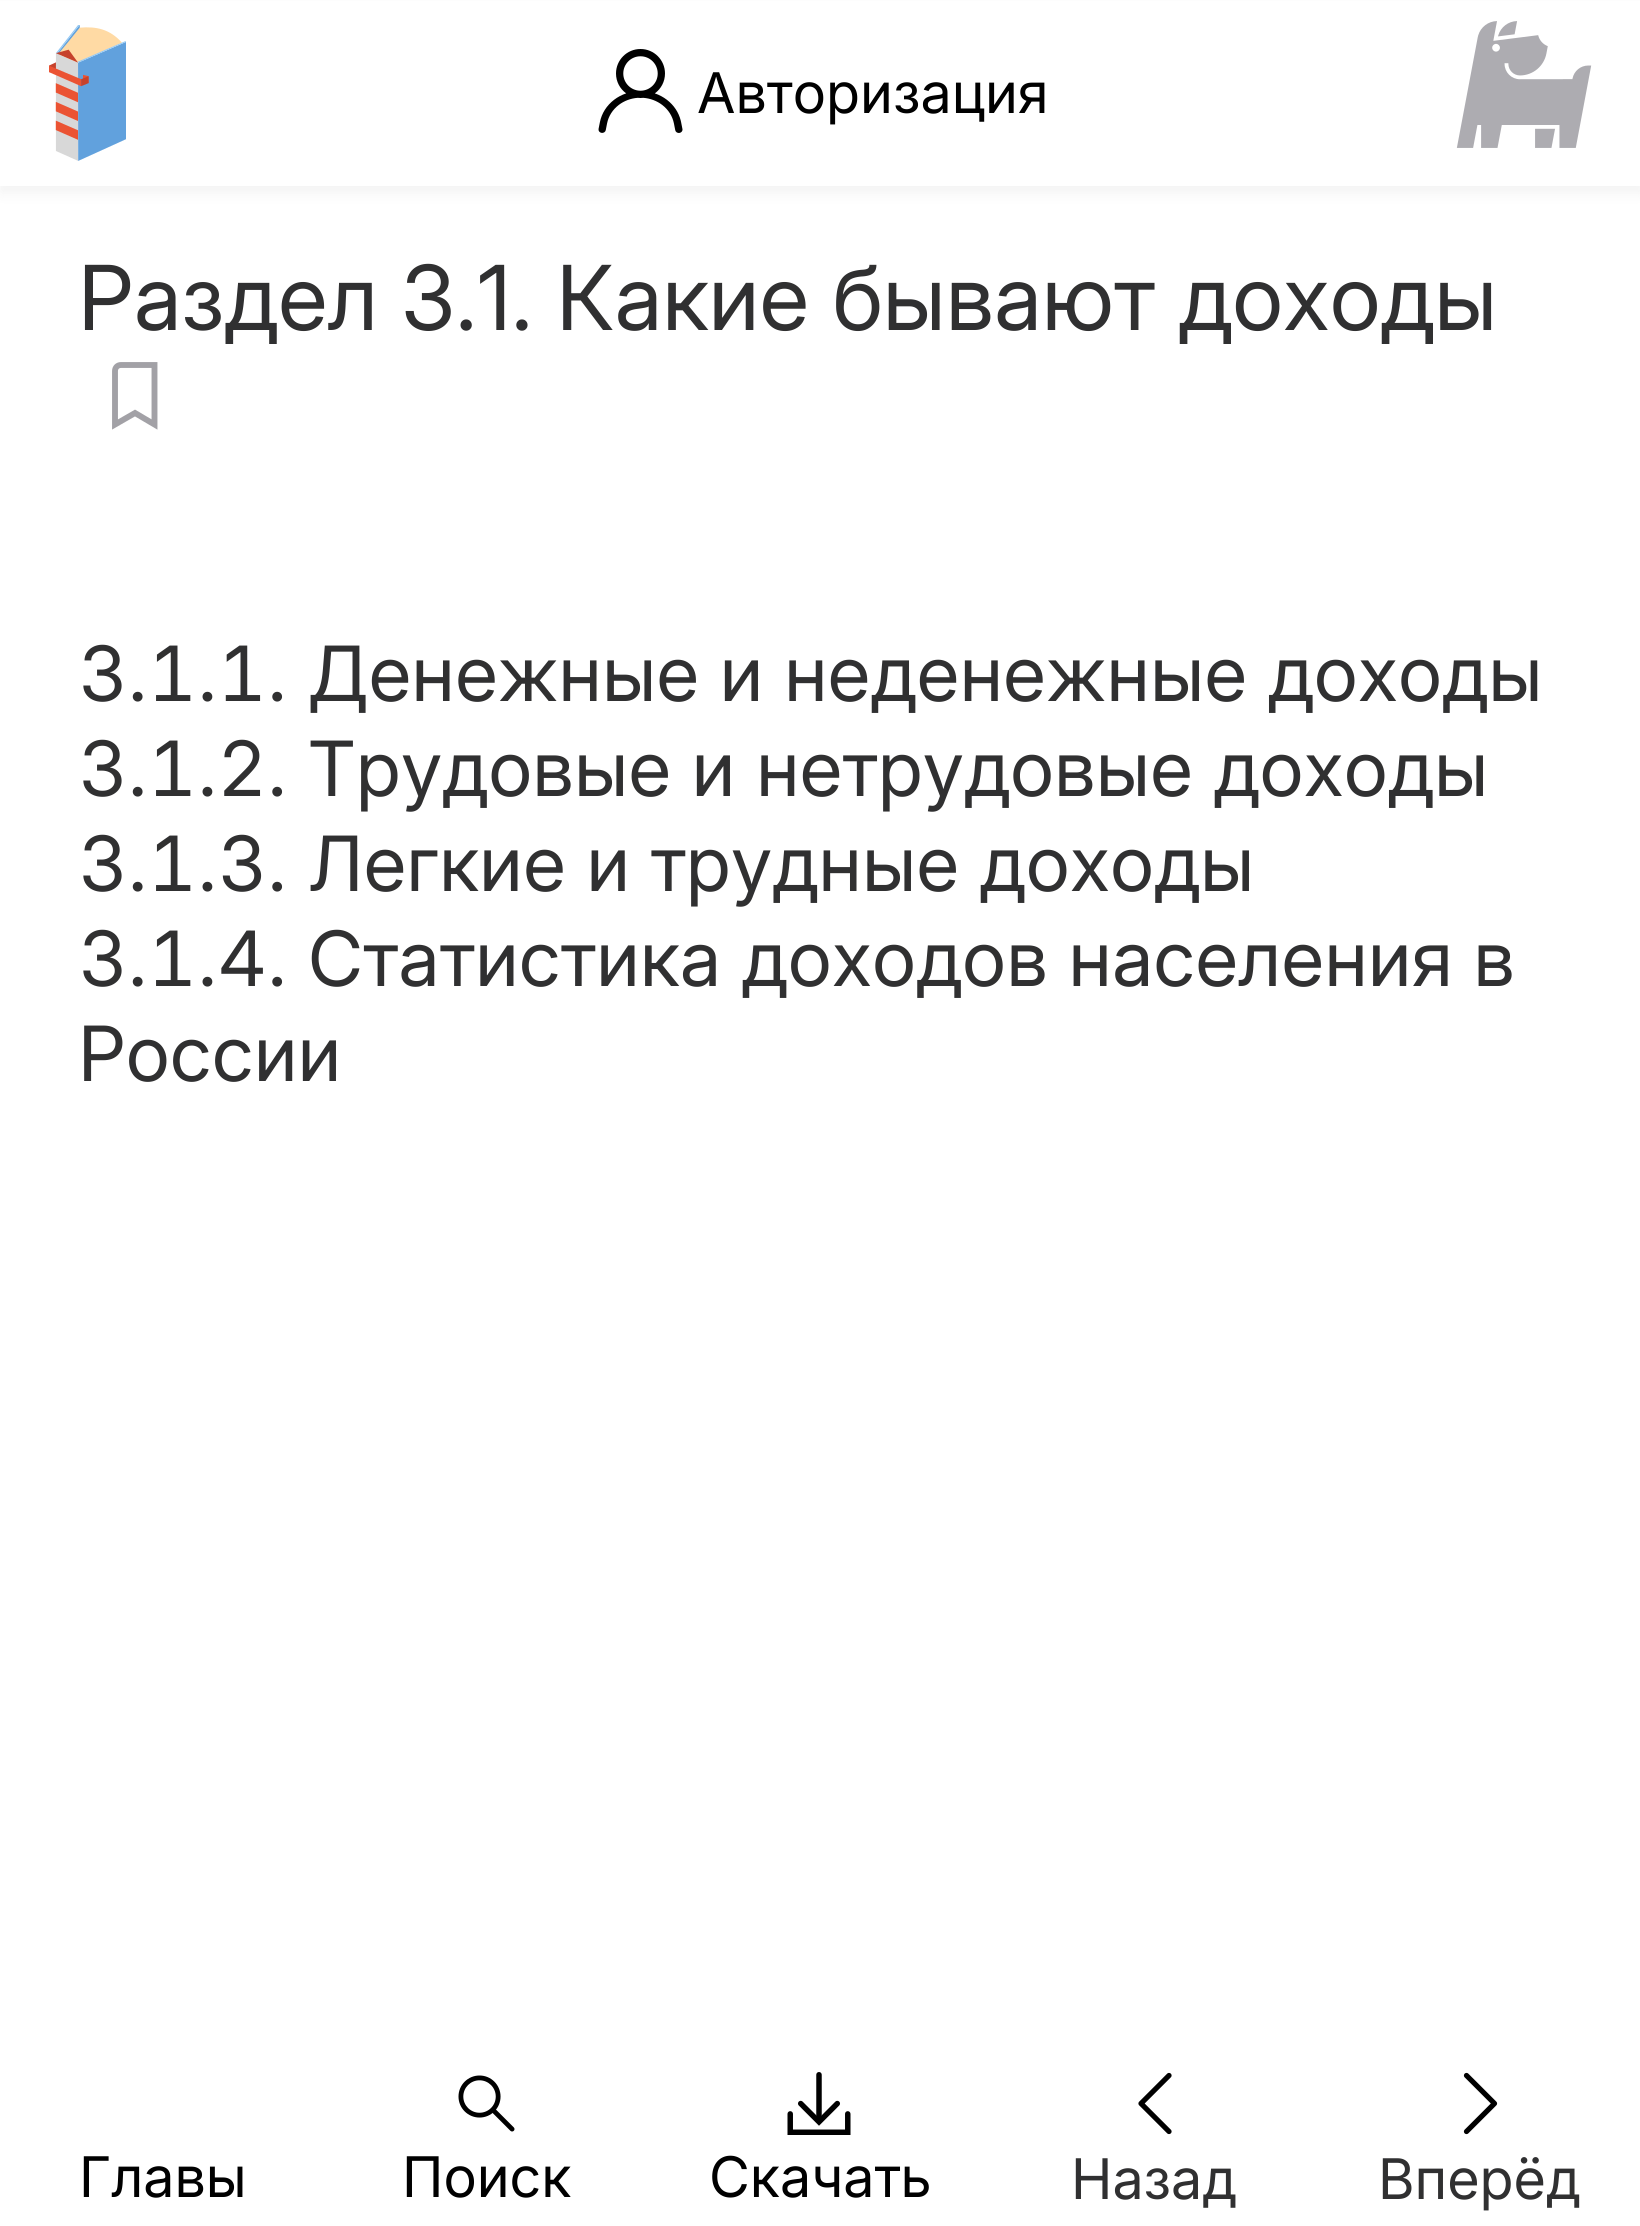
#include <cairo.h>
#include <math.h>
#include <stddef.h>

static cairo_t *c;
static void C(unsigned color){cairo_set_source_rgb(c, (color >> 16) / 255.0, (color >> 8 & 255) / 255.0, (color & 255) / 255.0);}
static void F(const char *family, double size, int italic, int bold){cairo_select_font_face(c, family, italic ? CAIRO_FONT_SLANT_ITALIC : CAIRO_FONT_SLANT_NORMAL,bold ? CAIRO_FONT_WEIGHT_BOLD : CAIRO_FONT_WEIGHT_NORMAL);cairo_set_font_size(c, size);}
static void T(double x, double y, const char *s){cairo_move_to(c, x, y);cairo_show_text(c, s);}
static void R(double x, double y, double w, double h){cairo_rectangle(c, x, y, w, h);cairo_fill(c);}
static void Q(double x, double y, double w, double h, double r){cairo_new_sub_path(c);cairo_arc(c, x + w - r, y + h - r, r, 0, M_PI / 2);cairo_arc(c, x + r, y + h - r, r, M_PI / 2, M_PI);cairo_arc(c, x + r, y + r, r, M_PI, 1.5 * M_PI);cairo_arc(c, x + w - r, y + r, r, 1.5 * M_PI, 2 * M_PI);cairo_close_path(c);}
static void S(double x, double y, double w, double h, double r, double blur, double alpha){cairo_push_group_with_content(c, CAIRO_CONTENT_ALPHA);cairo_set_operator(c, CAIRO_OPERATOR_SOURCE);for (int i = 15; i >= -15 && fmin(w, h) + blur * i / 3 > 0; i -= 2) {double e = blur * i / 6;cairo_set_source_rgba(c, 0, 0, 0, alpha * erfc((i - 1) / 8.5) / 2);Q(x - e, y - e, w + 2 * e, h + 2 * e, fmax(0, fmin(r + e + blur * .6, fmin(w, h) / 2 + e)));cairo_fill(c);}cairo_pattern_t *soft = cairo_pop_group(c);cairo_mask(c, soft);cairo_pattern_destroy(soft);}
static void I(const char *path, double x, double y, double w, double h){cairo_surface_t *image = cairo_image_surface_create_from_png(path);cairo_save(c);cairo_set_source_surface(c, image, x, y);cairo_rectangle(c, x, y, w, h);cairo_fill(c);cairo_restore(c);cairo_surface_destroy(image);}
int main(void) {
cairo_surface_t *surface = cairo_image_surface_create(CAIRO_FORMAT_RGB24, 1640, 2226);
c = cairo_create(surface);
cairo_font_options_t *options = cairo_font_options_create();
cairo_font_options_set_hint_metrics(options, CAIRO_HINT_METRICS_OFF);
cairo_font_options_set_hint_style(options, CAIRO_HINT_STYLE_NONE);
cairo_set_font_options(c, options);
cairo_set_miter_limit(c, 4);
C(0xffffff);
cairo_paint(c);
C(0x000000);
S(0,7,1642,186,0,7,.05);
C(0xffffff);
R(0,1,1640,185);
I("1.png",49,25,77,136);
I("2.png",598,49,85,84);
F("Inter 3",56,0,0);
C(0x000000);
T(697,113,"Авторизация");
I("3.png",1456,21,136,127);
F("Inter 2",89.6,0,0);
C(0x303031);
T(78,330,"Раздел 3.1. Какие бывают доходы");
cairo_new_path(c);
cairo_move_to(c,154.5,424.5);
cairo_line_to(c,135,413);
cairo_line_to(c,115,424.5);
cairo_line_to(c,115,371);
cairo_curve_to(c,115,367.5,117.5,365,121,365);
cairo_line_to(c,154.5,365);
cairo_close_path(c);
C(0xa2a1a6);
cairo_set_line_width(c,5.9);
cairo_stroke(c);
F("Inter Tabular",76.2,0,0);
C(0x303031);
T(78,701,"3.1.1. Денежные и неденежные доходы");
T(78,796,"3.1.2. Трудовые и нетрудовые доходы");
T(78,891,"3.1.3. Легкие и трудные доходы");
T(78,986,"3.1.4. Статистика доходов населения в");
F("Inter",76.2,0,0);
T(78,1081,"России");
F("Inter 3",56,0,0);
C(0x000000);
T(79,2197,"Главы");
I("4.png",458,2075,57,57);
T(402,2197,"Поиск");
I("5.png",787,2072,64,63);
T(709,2197,"Скачать");
cairo_new_path(c);
cairo_move_to(c,1169,2075.5);
cairo_line_to(c,1141,2103.5);
cairo_line_to(c,1169,2131.5);
cairo_set_line_width(c,5.2);
cairo_set_line_cap(c,CAIRO_LINE_CAP_ROUND);
cairo_set_line_join(c,CAIRO_LINE_JOIN_ROUND);
cairo_stroke(c);
C(0x303031);
T(1071,2199,"Назад");
cairo_new_path(c);
cairo_move_to(c,1466.5,2131.5);
cairo_line_to(c,1494.5,2103.5);
cairo_line_to(c,1466.5,2075.5);
C(0x000000);
cairo_stroke(c);
C(0x303031);
T(1378,2199,"Вперёд");
cairo_surface_write_to_png(surface, "o.png");
cairo_font_options_destroy(options);
cairo_destroy(c);
cairo_surface_destroy(surface);
return 0;
}
